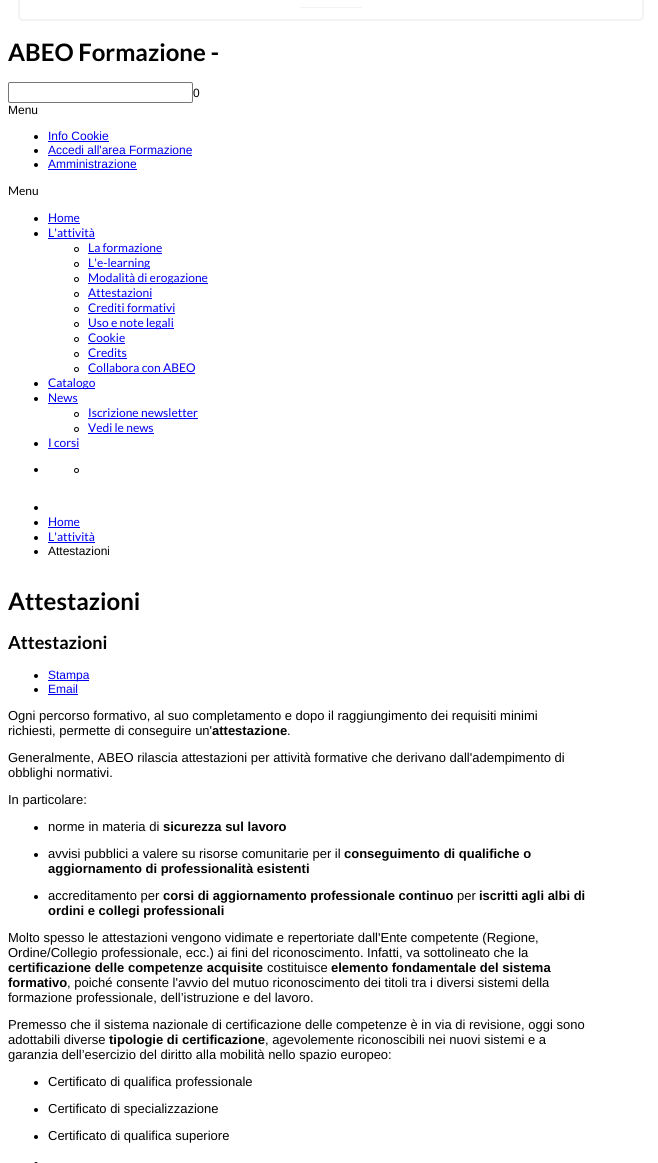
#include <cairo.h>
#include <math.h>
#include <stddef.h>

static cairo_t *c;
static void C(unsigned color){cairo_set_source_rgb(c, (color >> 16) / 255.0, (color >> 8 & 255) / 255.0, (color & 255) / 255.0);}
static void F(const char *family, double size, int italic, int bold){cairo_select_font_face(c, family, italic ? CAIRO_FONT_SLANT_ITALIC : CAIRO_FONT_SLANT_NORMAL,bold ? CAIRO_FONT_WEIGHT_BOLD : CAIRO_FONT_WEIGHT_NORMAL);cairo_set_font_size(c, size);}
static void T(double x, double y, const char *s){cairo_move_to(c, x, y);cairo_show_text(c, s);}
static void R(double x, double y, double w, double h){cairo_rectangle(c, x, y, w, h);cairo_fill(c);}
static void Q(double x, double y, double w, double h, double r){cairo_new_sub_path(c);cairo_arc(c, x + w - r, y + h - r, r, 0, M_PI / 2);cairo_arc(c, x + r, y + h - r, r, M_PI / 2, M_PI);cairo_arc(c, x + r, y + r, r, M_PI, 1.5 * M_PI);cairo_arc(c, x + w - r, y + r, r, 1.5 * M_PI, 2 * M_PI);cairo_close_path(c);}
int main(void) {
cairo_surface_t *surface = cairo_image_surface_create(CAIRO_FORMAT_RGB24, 658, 1163);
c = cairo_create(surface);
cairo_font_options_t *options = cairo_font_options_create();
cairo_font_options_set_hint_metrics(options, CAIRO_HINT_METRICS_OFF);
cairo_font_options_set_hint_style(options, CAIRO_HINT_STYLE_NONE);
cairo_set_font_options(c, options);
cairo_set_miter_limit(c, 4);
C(0xffffff);
cairo_paint(c);
Q(19,-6,624,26,4);
C(0xf3f3f3);
cairo_stroke(c);
R(300,7,62,1);
F("Lato",24,0,1);
C(0x000000);
T(8,61,"ABEO Formazione -");
Q(8.5,82.5,184,20,1.5);
C(0x767676);
cairo_set_line_width(c,1);
cairo_stroke(c);
F("Liberation Sans",12,0,0);
C(0x000000);
T(193,97,"0");
T(8,114,"Menu");
cairo_new_path(c);
cairo_arc(c,36,137,2,0,2 * M_PI);
cairo_fill(c);
C(0x0000ee);
T(48,140,"Info Cookie");
R(48,141,61,1);
C(0x000000);
cairo_new_path(c);
cairo_arc(c,36,151,2,0,2 * M_PI);
cairo_fill(c);
C(0x0000ee);
T(48,154,"Accedi all'area Formazione");
R(48,155,144,1);
C(0x000000);
cairo_new_path(c);
cairo_arc(c,36,165,2,0,2 * M_PI);
cairo_fill(c);
C(0x0000ee);
T(48,168,"Amministrazione");
R(48,169,89,1);
F("Lato",12,0,0);
C(0x000000);
T(8,195,"Menu");
cairo_new_path(c);
cairo_arc(c,36,219,2,0,2 * M_PI);
cairo_fill(c);
C(0x0000ee);
T(48,222,"Home");
R(48,223,32,1);
C(0x000000);
cairo_new_path(c);
cairo_arc(c,36,234,2,0,2 * M_PI);
cairo_fill(c);
C(0x0000ee);
T(48,237,"L'attività");
R(48,238,47,1);
cairo_new_path(c);
cairo_arc(c,76.5,249.5,2,0,2 * M_PI);
C(0x000000);
cairo_stroke(c);
C(0x0000ee);
T(88,252,"La formazione");
R(88,253,74,1);
cairo_new_path(c);
cairo_arc(c,76.5,264.5,2,0,2 * M_PI);
C(0x000000);
cairo_stroke(c);
C(0x0000ee);
R(88,268,62,1);
T(88,267,"L'e-learning");
cairo_new_path(c);
cairo_arc(c,76.5,279.5,2,0,2 * M_PI);
C(0x000000);
cairo_stroke(c);
C(0x0000ee);
R(88,283,120,1);
T(88,282,"Modalità di erogazione");
cairo_new_path(c);
cairo_arc(c,76.5,294.5,2,0,2 * M_PI);
C(0x000000);
cairo_stroke(c);
C(0x0000ee);
T(88,297,"Attestazioni");
R(88,298,64,1);
cairo_new_path(c);
cairo_arc(c,76.5,309.5,2,0,2 * M_PI);
C(0x000000);
cairo_stroke(c);
C(0x0000ee);
T(88,312,"Crediti formativi");
R(88,313,87,1);
cairo_new_path(c);
cairo_arc(c,76.5,324.5,2,0,2 * M_PI);
C(0x000000);
cairo_stroke(c);
C(0x0000ee);
R(88,328,86,1);
T(88,327,"Uso e note legali");
cairo_new_path(c);
cairo_arc(c,76.5,339.5,2,0,2 * M_PI);
C(0x000000);
cairo_stroke(c);
C(0x0000ee);
T(88,342,"Cookie");
R(88,343,37,1);
cairo_new_path(c);
cairo_arc(c,76.5,354.5,2,0,2 * M_PI);
C(0x000000);
cairo_stroke(c);
C(0x0000ee);
T(88,357,"Credits");
R(88,358,39,1);
cairo_new_path(c);
cairo_arc(c,76.5,369.5,2,0,2 * M_PI);
C(0x000000);
cairo_stroke(c);
C(0x0000ee);
T(88,372,"Collabora con ABEO");
R(88,373,107,1);
C(0x000000);
cairo_new_path(c);
cairo_arc(c,36,384,2,0,2 * M_PI);
cairo_fill(c);
C(0x0000ee);
R(48,388,47,1);
T(48,387,"Catalogo");
C(0x000000);
cairo_new_path(c);
cairo_arc(c,36,399,2,0,2 * M_PI);
cairo_fill(c);
C(0x0000ee);
T(48,402,"News");
R(48,403,30,1);
cairo_new_path(c);
cairo_arc(c,76.5,414.5,2,0,2 * M_PI);
C(0x000000);
cairo_stroke(c);
C(0x0000ee);
T(88,417,"Iscrizione newsletter");
R(88,418,110,1);
cairo_new_path(c);
cairo_arc(c,76.5,429.5,2,0,2 * M_PI);
C(0x000000);
cairo_stroke(c);
C(0x0000ee);
T(88,432,"Vedi le news");
R(88,433,66,1);
C(0x000000);
cairo_new_path(c);
cairo_arc(c,36,444,2,0,2 * M_PI);
cairo_fill(c);
C(0x0000ee);
T(48,447,"I corsi");
R(48,448,31,1);
C(0x000000);
cairo_new_path(c);
cairo_arc(c,36,470,2,0,2 * M_PI);
cairo_fill(c);
cairo_arc(c,76.5,470.5,2,0,2 * M_PI);
cairo_stroke(c);
cairo_arc(c,36,508,2,0,2 * M_PI);
cairo_fill(c);
cairo_arc(c,36,523,2,0,2 * M_PI);
cairo_fill(c);
C(0x0000ee);
T(48,526,"Home");
R(48,527,32,1);
C(0x000000);
cairo_new_path(c);
cairo_arc(c,36,538,2,0,2 * M_PI);
cairo_fill(c);
C(0x0000ee);
T(48,541,"L'attività");
R(48,542,47,1);
C(0x000000);
cairo_new_path(c);
cairo_arc(c,36,552,2,0,2 * M_PI);
cairo_fill(c);
F("Liberation Sans",12,0,0);
T(48,555,"Attestazioni");
F("Lato",24,0,1);
T(8,610,"Attestazioni");
F("Lato",18,0,1);
T(8,649,"Attestazioni");
cairo_new_path(c);
cairo_arc(c,36,676,2,0,2 * M_PI);
cairo_fill(c);
C(0x0000ee);
R(48,680,41,1);
F("Liberation Sans",12,0,0);
T(48,679,"Stampa");
C(0x000000);
cairo_new_path(c);
cairo_arc(c,36,690,2,0,2 * M_PI);
cairo_fill(c);
C(0x0000ee);
T(48,693,"Email");
R(48,694,30,1);
F("Liberation Sans",13,0,0);
C(0x000000);
T(8,720,"Ogni percorso formativo, al suo completamento e dopo il raggiungimento dei requisiti minimi");
T(8,735,"richiesti, permette di conseguire un'");
F("Liberation Sans",13,0,1);
T(212,735,"attestazione");
F("Liberation Sans",13,0,0);
T(287,735,".");
T(8,762,"Generalmente, ABEO rilascia attestazioni per attività formative che derivano dall'adempimento di");
T(8,777,"obblighi normativi.");
T(8,804,"In particolare:");
cairo_new_path(c);
cairo_arc(c,36,828,2,0,2 * M_PI);
cairo_fill(c);
T(48,831,"norme in materia di");
F("Liberation Sans",13,0,1);
T(163,831,"sicurezza sul lavoro");
cairo_new_path(c);
cairo_arc(c,36,855,2,0,2 * M_PI);
cairo_fill(c);
F("Liberation Sans",13,0,0);
T(48,858,"avvisi pubblici a valere su risorse comunitarie per il");
F("Liberation Sans",13,0,1);
T(344,858,"conseguimento di qualifiche o");
T(48,873,"aggiornamento di professionalità esistenti");
cairo_new_path(c);
cairo_arc(c,36,897,2,0,2 * M_PI);
cairo_fill(c);
F("Liberation Sans",13,0,0);
T(48,900,"accreditamento per");
F("Liberation Sans",13,0,1);
T(163,900,"corsi di aggiornamento professionale continuo");
F("Liberation Sans",13,0,0);
T(457,900,"per");
F("Liberation Sans",13,0,1);
T(479,900,"iscritti agli albi di");
T(48,915,"ordini e collegi professionali");
F("Liberation Sans",13,0,0);
T(8,942,"Molto spesso le attestazioni vengono vidimate e repertoriate dall'Ente competente (Regione,");
T(8,957,"Ordine/Collegio professionale, ecc.) ai fini del riconoscimento. Infatti, va sottolineato che la");
F("Liberation Sans",13,0,1);
T(8,972,"certificazione delle competenze acquisite");
F("Liberation Sans",13,0,0);
T(267,972,"costituisce");
F("Liberation Sans",13,0,1);
T(331,972,"elemento fondamentale del sistema");
T(8,987,"formativo");
F("Liberation Sans",13,0,0);
T(67,987,", poiché consente l'avvio del mutuo riconoscimento dei titoli tra i diversi sistemi della");
T(8,1002,"formazione professionale, dell’istruzione e del lavoro.");
T(8,1029,"Premesso che il sistema nazionale di certificazione delle competenze è in via di revisione, oggi sono");
T(8,1044,"adottabili diverse");
F("Liberation Sans",13,0,1);
T(109,1044,"tipologie di certificazione");
F("Liberation Sans",13,0,0);
T(265,1044,", agevolemente riconoscibili nei nuovi sistemi e a");
T(8,1059,"garanzia dell’esercizio del diritto alla mobilità nello spazio europeo:");
cairo_new_path(c);
cairo_arc(c,36,1083,2,0,2 * M_PI);
cairo_fill(c);
T(48,1086,"Certificato di qualifica professionale");
cairo_new_path(c);
cairo_arc(c,36,1110,2,0,2 * M_PI);
cairo_fill(c);
T(48,1113,"Certificato di specializzazione");
cairo_new_path(c);
cairo_arc(c,36,1137,2,0,2 * M_PI);
cairo_fill(c);
T(48,1140,"Certificato di qualifica superiore");
Q(34,1162,4,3,2);
cairo_fill(c);
cairo_surface_write_to_png(surface, "o.png");
cairo_font_options_destroy(options);
cairo_destroy(c);
cairo_surface_destroy(surface);
return 0;
}
